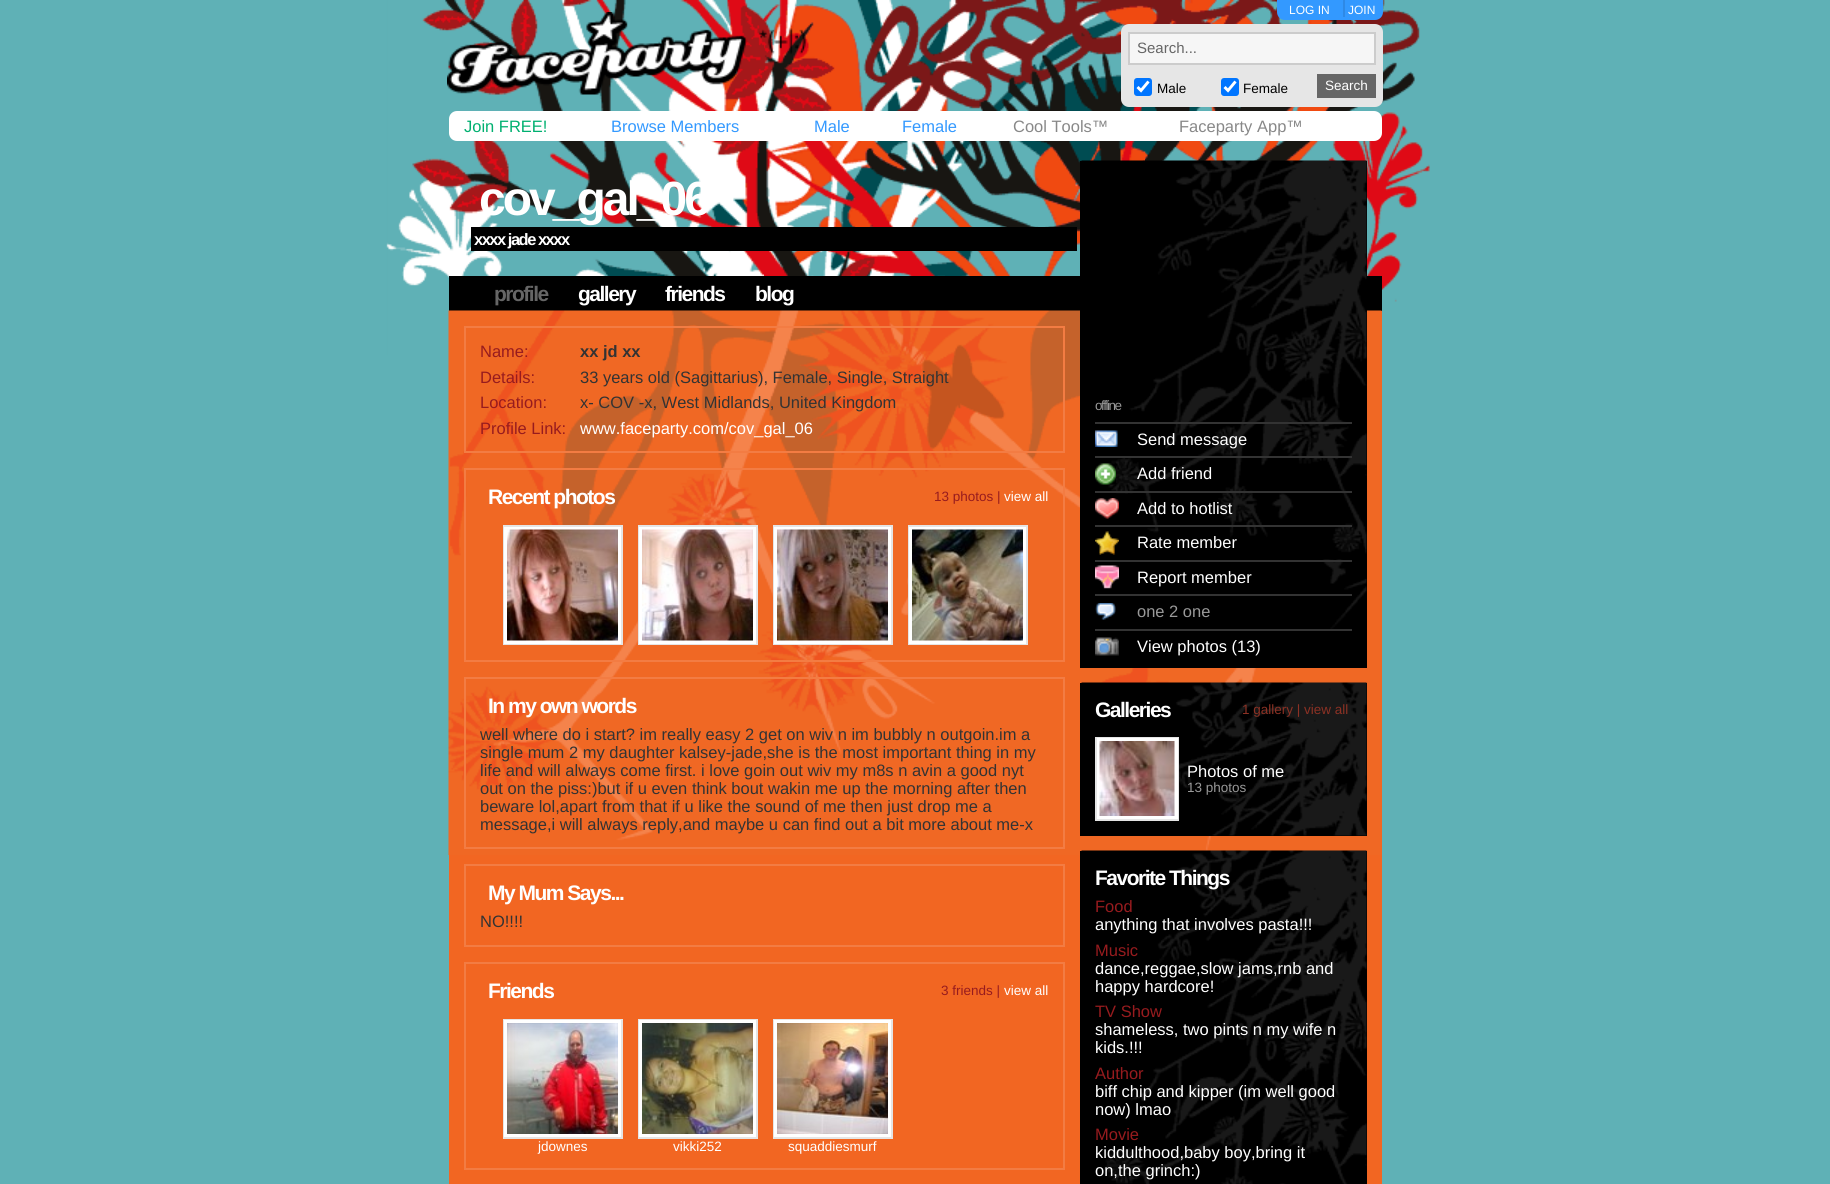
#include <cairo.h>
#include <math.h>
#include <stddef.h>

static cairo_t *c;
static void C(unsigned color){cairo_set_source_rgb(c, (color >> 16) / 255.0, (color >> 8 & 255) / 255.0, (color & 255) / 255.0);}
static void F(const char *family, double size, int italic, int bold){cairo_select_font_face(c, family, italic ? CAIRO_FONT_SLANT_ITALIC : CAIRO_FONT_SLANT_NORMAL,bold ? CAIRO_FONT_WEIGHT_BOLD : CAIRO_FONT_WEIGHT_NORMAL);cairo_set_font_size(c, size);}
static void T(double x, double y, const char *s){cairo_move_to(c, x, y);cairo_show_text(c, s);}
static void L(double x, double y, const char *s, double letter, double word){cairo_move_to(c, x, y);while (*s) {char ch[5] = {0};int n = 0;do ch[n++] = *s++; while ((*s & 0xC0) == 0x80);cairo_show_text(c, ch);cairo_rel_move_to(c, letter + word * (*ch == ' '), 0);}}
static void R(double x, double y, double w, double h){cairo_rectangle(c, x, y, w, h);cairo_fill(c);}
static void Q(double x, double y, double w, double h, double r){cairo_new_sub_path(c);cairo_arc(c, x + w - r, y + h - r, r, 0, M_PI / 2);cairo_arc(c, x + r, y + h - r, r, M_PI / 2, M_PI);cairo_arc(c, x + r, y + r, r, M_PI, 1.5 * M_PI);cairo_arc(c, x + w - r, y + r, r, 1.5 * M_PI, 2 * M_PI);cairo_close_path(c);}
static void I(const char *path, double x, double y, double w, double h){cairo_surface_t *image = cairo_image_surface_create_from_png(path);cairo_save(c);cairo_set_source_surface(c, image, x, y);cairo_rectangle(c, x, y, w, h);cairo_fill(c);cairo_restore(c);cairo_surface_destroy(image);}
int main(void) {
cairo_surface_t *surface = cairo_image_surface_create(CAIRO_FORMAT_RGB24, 1830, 1184);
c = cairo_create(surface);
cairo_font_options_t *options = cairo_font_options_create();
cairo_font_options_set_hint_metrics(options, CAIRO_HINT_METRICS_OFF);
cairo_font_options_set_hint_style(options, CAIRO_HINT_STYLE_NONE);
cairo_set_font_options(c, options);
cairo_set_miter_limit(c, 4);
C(0x5fb1b6);
cairo_paint(c);
I("1.png",386,0,1044,356);
I("2.png",447,12,359,83);
C(0x3399ff);
cairo_new_path(c);
cairo_move_to(c,1277,0);
cairo_line_to(c,1383,0);
cairo_line_to(c,1383,12);
cairo_curve_to(c,1383,16.5,1379.5,20,1375,20);
cairo_line_to(c,1285,20);
cairo_curve_to(c,1280.5,20,1277,16.5,1277,12);
cairo_close_path(c);
cairo_fill(c);
C(0x2e89e5);
R(1343,0,2,17);
F("Liberation Sans",12,0,0);
C(0xffffff);
T(1289,14,"LOG IN");
T(1348,14,"JOIN");
C(0xe6e6e6);
Q(1121,24,262,83,8);
cairo_fill(c);
C(0xf6f6f6);
cairo_rectangle(c,1129,33,246,31);
cairo_fill_preserve(c);
C(0xcccccc);
cairo_stroke(c);
F("Liberation Sans",15,0,0);
C(0x666666);
T(1137,53,"Search...");
C(0x0075ff);
Q(1134,78,18,18,3);
cairo_fill(c);
cairo_new_path(c);
cairo_move_to(c,1137.5,87);
cairo_line_to(c,1141,90.5);
cairo_line_to(c,1148.5,81.5);
C(0xffffff);
cairo_set_line_width(c,2.9);
cairo_stroke(c);
F("Liberation Sans",13.5,0,0);
C(0x000000);
T(1157,93,"Male");
C(0x0075ff);
Q(1221,78,18,18,3);
cairo_fill(c);
cairo_new_path(c);
cairo_move_to(c,1224.5,87);
cairo_line_to(c,1228,90.5);
cairo_line_to(c,1235.5,81.5);
C(0xffffff);
cairo_stroke(c);
C(0x000000);
T(1243,93,"Female");
C(0x666666);
R(1317,74,59,24);
C(0xffffff);
T(1325,90,"Search");
Q(449,111,933,30,8);
cairo_fill(c);
F("Liberation Sans",16.5,0,0);
C(0x00b070);
T(464,132,"Join FREE!");
C(0x3399ff);
T(611,132,"Browse Members");
T(814,132,"Male");
T(902,132,"Female");
C(0x888888);
T(1013,132,"Cool Tools™");
T(1179,132,"Faceparty App™");
F("Liberation Sans",48,0,1);
C(0xffffff);
L(479,215,"cov_gal_06",-3,0);
C(0x000000);
R(471,227,606,24);
F("Liberation Sans",16.5,0,1);
C(0xffffff);
L(474,245,"xxxx jade xxxx",-1.5,0);
C(0x000000);
R(449,276,933,35);
F("Liberation Sans",21,0,1);
C(0x666666);
L(494,301,"profile",-1.5,0);
C(0xffffff);
L(578,301,"gallery",-1.5,0);
L(665,301,"friends",-1.5,0);
L(755,301,"blog",-1.5,0);
C(0xf26622);
R(449,311,933,873);
I("3.png",448,310,934,545);
cairo_rectangle(c,465,327,599,125);
C(0xf37c43);
cairo_set_line_width(c,2);
cairo_stroke(c);
F("Liberation Sans",16.5,0,0);
C(0x971b1e);
T(480,357,"Name:");
F("Liberation Sans",16.5,0,1);
C(0x333333);
T(580,357,"xx jd xx");
F("Liberation Sans",16.5,0,0);
C(0x971b1e);
T(480,383,"Details:");
C(0x333333);
T(580,383,"33 years old (Sagittarius), Female, Single, Straight");
C(0x971b1e);
T(480,408,"Location:");
C(0x333333);
T(580,408,"x- COV -x, West Midlands, United Kingdom");
C(0x971b1e);
T(480,434,"Profile Link:");
C(0xffffff);
T(580,434,"www.faceparty.com/cov_gal_06");
cairo_rectangle(c,465,469,599,192);
C(0xf37c43);
cairo_stroke(c);
F("Liberation Sans",21,0,1);
C(0xffffff);
L(488,504,"Recent photos",-1.5,0);
F("Liberation Sans",13.5,0,0);
C(0x971b1e);
T(934,501,"13 photos |");
C(0xffffff);
T(1004,501,"view all");
C(0xe5e5e5);
R(503,525,120,120);
C(0xffffff);
R(504,527,117,117);
I("4.png",507,529,111,112);
C(0xe5e5e5);
R(638,525,120,120);
C(0xffffff);
R(639,527,117,117);
I("5.png",642,529,111,112);
C(0xe5e5e5);
R(773,525,120,120);
C(0xffffff);
R(774,527,117,117);
I("6.png",777,529,111,112);
C(0xe5e5e5);
R(908,525,120,120);
C(0xffffff);
R(909,527,117,117);
I("7.png",912,529,111,112);
cairo_rectangle(c,465,678,599,170);
C(0xf37c43);
cairo_stroke(c);
F("Liberation Sans",21,0,1);
C(0xffffff);
L(488,713,"In my own words",-1.5,0);
F("Liberation Sans",16.5,0,0);
C(0x333333);
T(480,740,"well where do i start? im really easy 2 get on wiv n im bubbly n outgoin.im a");
T(480,758,"single mum 2 my daughter kalsey-jade,she is the most important thing in my");
T(480,776,"life and will always come first. i love goin out wiv my m8s n avin a good nyt");
T(480,794,"out on the piss:)but if u even think bout wakin me up the morning after then");
T(480,812,"beware lol,apart from that if u like the sound of me then just drop me a");
T(480,830,"message,i will always reply,and maybe u can find out a bit more about me-x");
cairo_rectangle(c,465,865,599,81);
C(0xf37c43);
cairo_stroke(c);
F("Liberation Sans",21,0,1);
C(0xffffff);
L(488,900,"My Mum Says...",-1.5,0);
F("Liberation Sans",16.5,0,0);
C(0x333333);
T(480,927,"NO!!!!");
cairo_rectangle(c,465,963,599,206);
C(0xf37c43);
cairo_stroke(c);
F("Liberation Sans",21,0,1);
C(0xffffff);
L(488,998,"Friends",-1.5,0);
F("Liberation Sans",13.5,0,0);
C(0x971b1e);
T(941,995,"3 friends |");
C(0xffffff);
T(1004,995,"view all");
C(0xe5e5e5);
R(503,1019,120,120);
C(0xffffff);
R(504,1020,117,117);
I("8.png",507,1023,111,111);
T(538,1151,"jdownes");
C(0xe5e5e5);
R(638,1019,120,120);
C(0xffffff);
R(639,1020,117,117);
I("9.png",642,1023,111,111);
T(673,1151,"vikki252");
C(0xe5e5e5);
R(773,1019,120,120);
C(0xffffff);
R(774,1020,117,117);
I("10.png",777,1023,111,111);
T(788,1151,"squaddiesmurf");
C(0x000000);
R(1080,161,287,507);
I("11.png",1081,160,286,470);
C(0x999999);
L(1095,410,"offline",-1.5,0);
C(0x333333);
R(1095,422,257,2);
I("12.png",1095,430,23,17);
F("Liberation Sans",16.5,0,0);
C(0xffffff);
T(1137,445,"Send message");
C(0x333333);
R(1095,456,257,2);
I("13.png",1095,463,21,22);
C(0xffffff);
T(1137,479,"Add friend");
C(0x333333);
R(1095,491,257,2);
I("14.png",1095,498,24,21);
C(0xffffff);
T(1137,514,"Add to hotlist");
C(0x333333);
R(1095,525,257,2);
I("15.png",1095,531,24,24);
C(0xffffff);
T(1137,548,"Rate member");
C(0x333333);
R(1095,560,257,2);
I("16.png",1095,565,24,24);
C(0xffffff);
T(1137,583,"Report member");
C(0x333333);
R(1095,594,257,2);
I("17.png",1095,603,21,17);
C(0x999999);
T(1137,617,"one 2 one");
C(0x333333);
R(1095,629,257,2);
I("18.png",1095,637,24,19);
C(0xffffff);
T(1137,652,"View photos (13)");
C(0x000000);
R(1080,683,287,153);
I("19.png",1081,682,286,154);
F("Liberation Sans",21,0,1);
C(0xffffff);
L(1095,717,"Galleries",-1.5,0);
F("Liberation Sans",13.5,0,0);
C(0x8c3124);
T(1242,714,"1 gallery | view all");
C(0xe5e5e5);
R(1095,737,84,84);
C(0xffffff);
R(1097,738,81,81);
I("20.png",1099,741,76,75);
F("Liberation Sans",16.5,0,0);
T(1187,777,"Photos of me");
F("Liberation Sans",13.5,0,0);
C(0x999999);
T(1187,792,"13 photos");
C(0x000000);
R(1080,851,287,333);
I("21.png",1081,850,286,334);
F("Liberation Sans",21,0,1);
C(0xffffff);
L(1095,885,"Favorite Things",-1.5,0);
F("Liberation Sans",16.5,0,0);
C(0x971b1e);
T(1095,912,"Food");
C(0xffffff);
T(1095,930,"anything that involves pasta!!!");
C(0x971b1e);
T(1095,956,"Music");
C(0xffffff);
T(1095,974,"dance,reggae,slow jams,rnb and");
T(1095,992,"happy hardcore!");
C(0x971b1e);
T(1095,1017,"TV Show");
C(0xffffff);
T(1095,1035,"shameless, two pints n my wife n");
T(1095,1053,"kids.!!!");
C(0x971b1e);
T(1095,1079,"Author");
C(0xffffff);
T(1095,1097,"biff chip and kipper (im well good");
T(1095,1115,"now) lmao");
C(0x971b1e);
T(1095,1140,"Movie");
C(0xffffff);
T(1095,1158,"kiddulthood,baby boy,bring it");
T(1095,1176,"on,the grinch:)");
cairo_surface_write_to_png(surface, "o.png");
cairo_font_options_destroy(options);
cairo_destroy(c);
cairo_surface_destroy(surface);
return 0;
}
